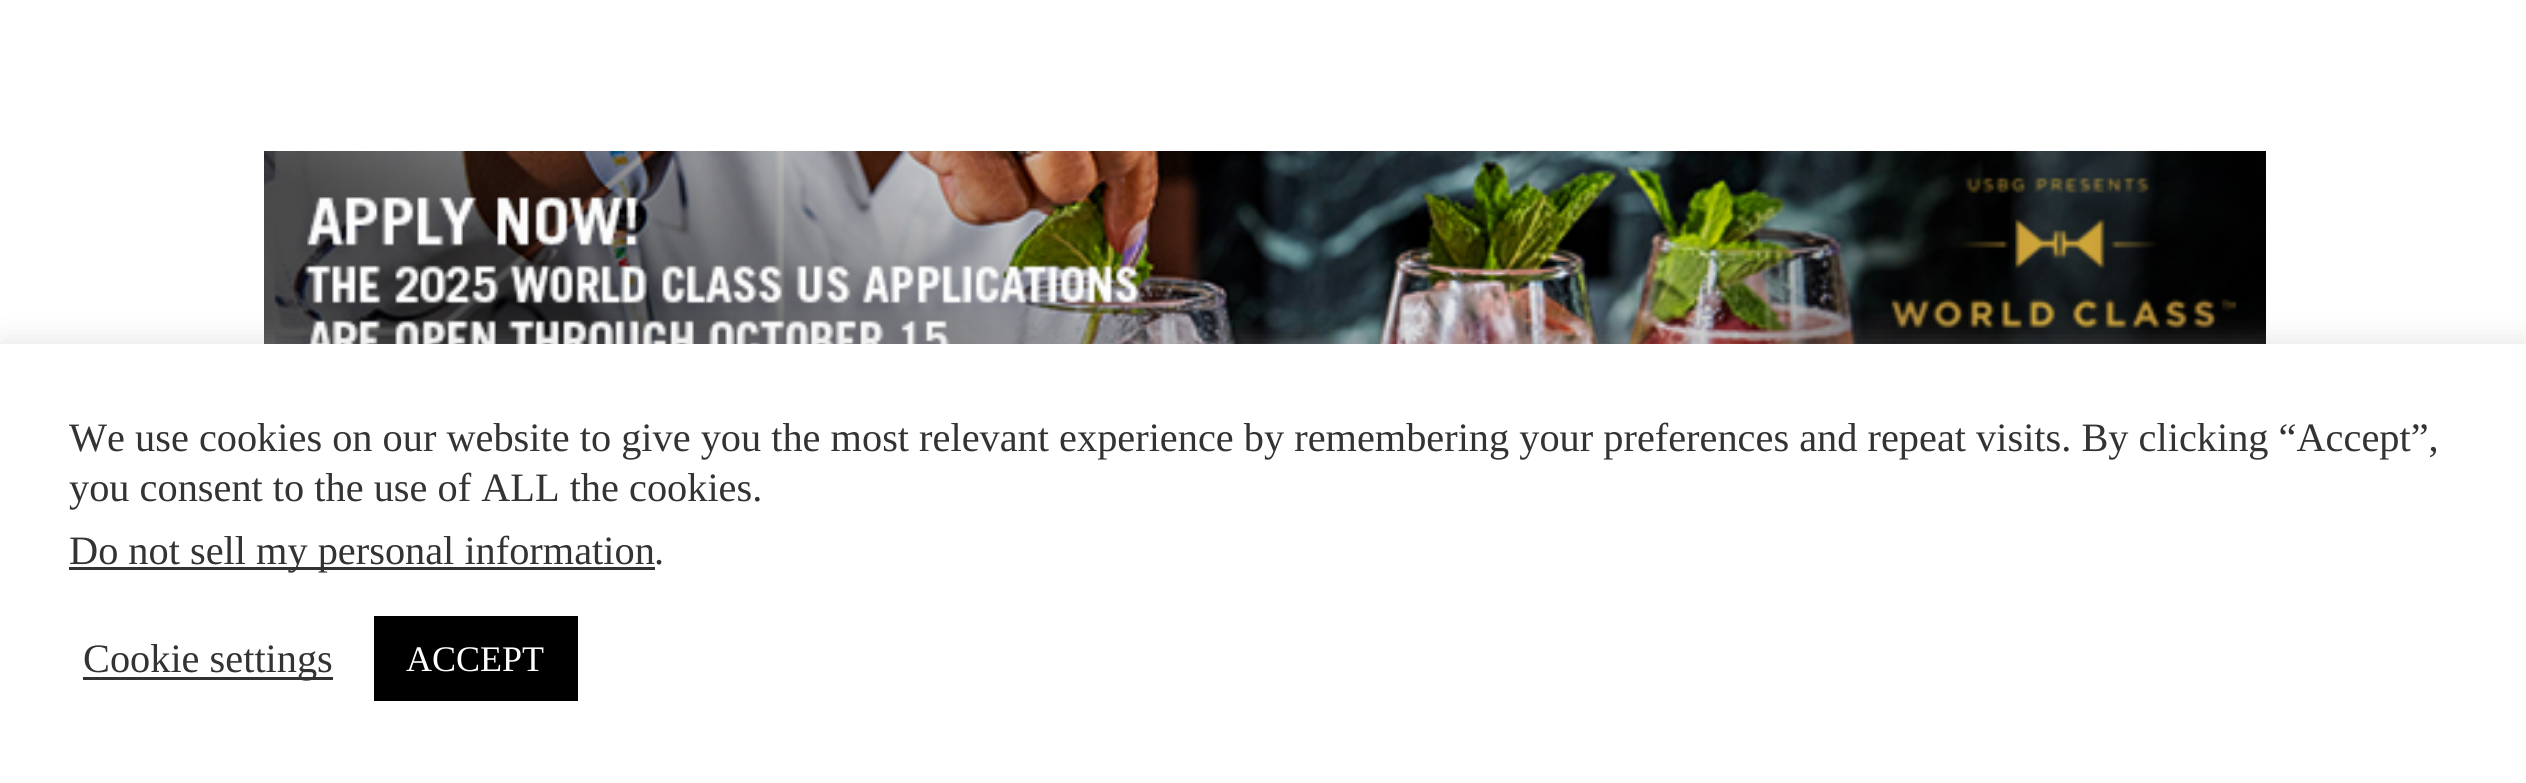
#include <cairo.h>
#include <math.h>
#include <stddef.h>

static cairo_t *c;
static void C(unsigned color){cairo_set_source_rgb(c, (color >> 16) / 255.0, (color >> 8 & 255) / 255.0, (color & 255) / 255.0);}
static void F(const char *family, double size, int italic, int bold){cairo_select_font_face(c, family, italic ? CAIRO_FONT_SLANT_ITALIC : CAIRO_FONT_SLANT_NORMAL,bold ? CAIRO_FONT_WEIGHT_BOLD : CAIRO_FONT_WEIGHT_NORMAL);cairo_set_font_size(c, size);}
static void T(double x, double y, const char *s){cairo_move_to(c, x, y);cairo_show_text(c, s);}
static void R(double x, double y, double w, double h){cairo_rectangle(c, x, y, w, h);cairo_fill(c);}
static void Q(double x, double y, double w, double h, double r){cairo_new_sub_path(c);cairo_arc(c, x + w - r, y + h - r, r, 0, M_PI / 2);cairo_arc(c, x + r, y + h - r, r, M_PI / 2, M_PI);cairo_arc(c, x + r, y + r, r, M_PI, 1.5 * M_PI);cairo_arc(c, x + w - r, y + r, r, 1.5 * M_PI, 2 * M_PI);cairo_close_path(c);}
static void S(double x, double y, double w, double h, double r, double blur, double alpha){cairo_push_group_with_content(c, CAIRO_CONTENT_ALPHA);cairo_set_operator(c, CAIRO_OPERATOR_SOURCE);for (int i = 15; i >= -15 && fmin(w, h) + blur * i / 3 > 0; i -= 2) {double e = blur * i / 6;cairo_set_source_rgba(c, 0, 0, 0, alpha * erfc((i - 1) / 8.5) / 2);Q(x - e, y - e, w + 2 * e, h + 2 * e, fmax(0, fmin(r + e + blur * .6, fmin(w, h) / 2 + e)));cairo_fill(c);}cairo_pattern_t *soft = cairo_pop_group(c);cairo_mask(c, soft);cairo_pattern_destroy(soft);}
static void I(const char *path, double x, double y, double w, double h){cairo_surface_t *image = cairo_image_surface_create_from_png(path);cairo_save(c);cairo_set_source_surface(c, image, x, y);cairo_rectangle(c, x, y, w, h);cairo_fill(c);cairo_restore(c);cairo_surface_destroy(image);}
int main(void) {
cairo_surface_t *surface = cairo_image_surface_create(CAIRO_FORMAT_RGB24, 2526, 783);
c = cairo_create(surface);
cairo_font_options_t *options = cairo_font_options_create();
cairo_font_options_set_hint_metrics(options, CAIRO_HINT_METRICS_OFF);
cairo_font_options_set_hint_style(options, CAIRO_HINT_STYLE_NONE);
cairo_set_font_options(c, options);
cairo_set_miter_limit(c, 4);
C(0xffffff);
cairo_paint(c);
I("1.png",264,151,2002,193);
C(0xacabab);
S(0,341,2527,440,0,14,.3);
C(0xffffff);
R(0,344,2526,439);
F("Liberation Serif",40.33,0,0);
C(0x333333);
T(69,451,"We use cookies on our website to give you the most relevant experience by remembering your preferences and repeat visits. By clicking “Accept”,");
T(69,501,"you consent to the use of ALL the cookies.");
R(69,567,586,3);
T(69,564,"Do not sell my personal information");
T(654,564,".");
R(83,677,250,3);
T(83,672,"Cookie settings");
C(0x000000);
R(374,616,204,85);
F("Liberation Serif",36,0,0);
C(0xffffff);
T(406,671,"ACCEPT");
cairo_surface_write_to_png(surface, "o.png");
cairo_font_options_destroy(options);
cairo_destroy(c);
cairo_surface_destroy(surface);
return 0;
}
